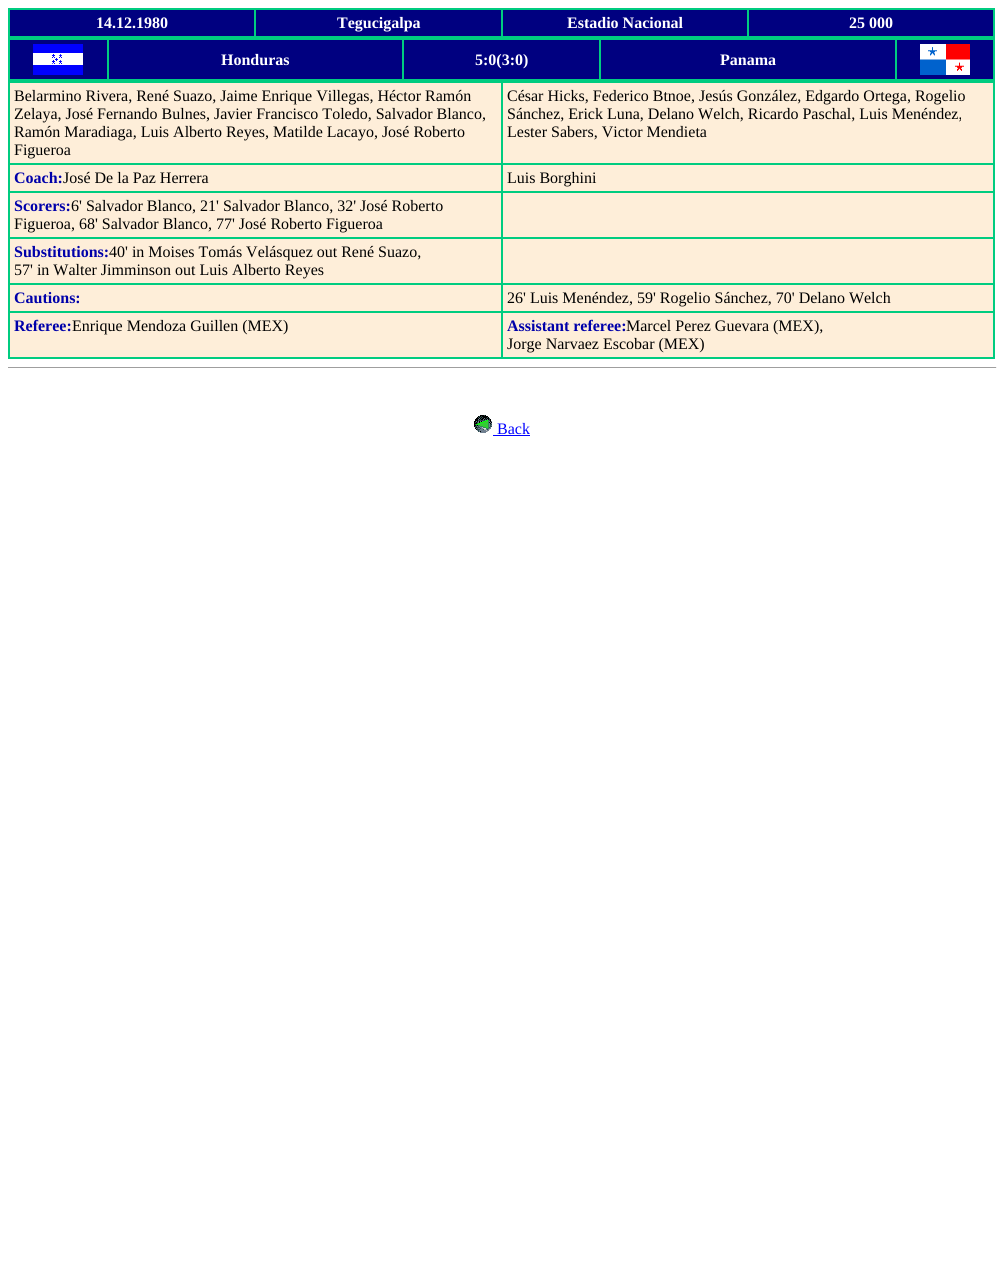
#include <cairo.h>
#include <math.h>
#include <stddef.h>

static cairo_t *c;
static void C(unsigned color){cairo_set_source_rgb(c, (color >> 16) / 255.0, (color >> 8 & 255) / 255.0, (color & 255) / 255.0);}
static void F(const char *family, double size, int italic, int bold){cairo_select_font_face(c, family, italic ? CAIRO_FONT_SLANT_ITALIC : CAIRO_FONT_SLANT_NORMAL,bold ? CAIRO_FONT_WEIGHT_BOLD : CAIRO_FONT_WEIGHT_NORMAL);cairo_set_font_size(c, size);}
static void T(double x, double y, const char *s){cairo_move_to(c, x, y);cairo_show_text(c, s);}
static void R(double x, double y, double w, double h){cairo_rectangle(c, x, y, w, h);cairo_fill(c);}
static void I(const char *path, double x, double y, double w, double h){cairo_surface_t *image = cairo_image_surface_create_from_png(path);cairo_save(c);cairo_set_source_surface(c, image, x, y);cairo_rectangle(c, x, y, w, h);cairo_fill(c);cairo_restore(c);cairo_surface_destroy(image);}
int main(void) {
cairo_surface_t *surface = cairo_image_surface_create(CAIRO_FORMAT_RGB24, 1003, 1273);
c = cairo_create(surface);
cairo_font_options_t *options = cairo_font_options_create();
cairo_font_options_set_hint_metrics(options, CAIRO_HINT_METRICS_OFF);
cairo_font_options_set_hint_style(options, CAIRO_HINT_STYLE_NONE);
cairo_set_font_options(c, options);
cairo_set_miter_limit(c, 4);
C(0xffffff);
cairo_paint(c);
C(0x000080);
R(10,10,983,26);
cairo_rectangle(c,8.5,8.5,986,29);
C(0x00cc80);
cairo_set_line_width(c,1);
cairo_stroke(c);
cairo_rectangle(c,9.5,9.5,245,27);
cairo_stroke(c);
F("Liberation Serif",16,0,1);
C(0xffffff);
T(96,28,"14.12.1980");
cairo_rectangle(c,255.5,9.5,246,27);
C(0x00cc80);
cairo_stroke(c);
C(0xffffff);
T(337,28,"Tegucigalpa");
cairo_rectangle(c,502.5,9.5,245,27);
C(0x00cc80);
cairo_stroke(c);
C(0xffffff);
T(567,28,"Estadio Nacional");
cairo_rectangle(c,748.5,9.5,245,27);
C(0x00cc80);
cairo_stroke(c);
C(0xffffff);
T(849,28,"25 000");
C(0x000080);
R(10,40,983,39);
cairo_rectangle(c,8.5,38.5,986,42);
C(0x00cc80);
cairo_stroke(c);
cairo_rectangle(c,9.5,39.5,98,40);
cairo_stroke(c);
I("1.png",33,44,50,31);
cairo_rectangle(c,108.5,39.5,294,40);
cairo_stroke(c);
C(0xffffff);
T(221,65,"Honduras");
cairo_rectangle(c,403.5,39.5,196,40);
C(0x00cc80);
cairo_stroke(c);
C(0xffffff);
T(475,65,"5:0(3:0)");
cairo_rectangle(c,600.5,39.5,295,40);
C(0x00cc80);
cairo_stroke(c);
C(0xffffff);
T(720,65,"Panama");
cairo_rectangle(c,896.5,39.5,97,40);
C(0x00cc80);
cairo_stroke(c);
I("2.png",920,44,50,31);
C(0xfeeed9);
R(10,83,983,274);
cairo_rectangle(c,8.5,81.5,986,277);
C(0x00cc80);
cairo_stroke(c);
cairo_rectangle(c,9.5,82.5,492,81);
cairo_stroke(c);
F("Liberation Serif",16,0,0);
C(0x000000);
T(14,101,"Belarmino Rivera, René Suazo, Jaime Enrique Villegas, Héctor Ramón");
T(14,119,"Zelaya, José Fernando Bulnes, Javier Francisco Toledo, Salvador Blanco,");
T(14,137,"Ramón Maradiaga, Luis Alberto Reyes, Matilde Lacayo, José Roberto");
T(14,155,"Figueroa");
cairo_rectangle(c,502.5,82.5,491,81);
C(0x00cc80);
cairo_stroke(c);
C(0x000000);
T(507,101,"César Hicks, Federico Btnoe, Jesús González, Edgardo Ortega, Rogelio");
T(507,119,"Sánchez, Erick Luna, Delano Welch, Ricardo Paschal, Luis Menéndez,");
T(507,137,"Lester Sabers, Victor Mendieta");
cairo_rectangle(c,9.5,164.5,492,27);
C(0x00cc80);
cairo_stroke(c);
F("Liberation Serif",16,0,1);
C(0x0000aa);
T(14,183,"Coach:");
F("Liberation Serif",16,0,0);
C(0x000000);
T(63,183,"José De la Paz Herrera");
cairo_rectangle(c,502.5,164.5,491,27);
C(0x00cc80);
cairo_stroke(c);
C(0x000000);
T(507,183,"Luis Borghini");
cairo_rectangle(c,9.5,192.5,492,45);
C(0x00cc80);
cairo_stroke(c);
F("Liberation Serif",16,0,1);
C(0x0000aa);
T(14,211,"Scorers:");
F("Liberation Serif",16,0,0);
C(0x000000);
T(71,211,"6' Salvador Blanco, 21' Salvador Blanco, 32' José Roberto");
T(14,229,"Figueroa, 68' Salvador Blanco, 77' José Roberto Figueroa");
cairo_rectangle(c,502.5,192.5,491,45);
C(0x00cc80);
cairo_stroke(c);
cairo_rectangle(c,9.5,238.5,492,45);
cairo_stroke(c);
F("Liberation Serif",16,0,1);
C(0x0000aa);
T(14,257,"Substitutions:");
F("Liberation Serif",16,0,0);
C(0x000000);
T(109,257,"40' in Moises Tomás Velásquez out René Suazo,");
T(14,275,"57' in Walter Jimminson out Luis Alberto Reyes");
cairo_rectangle(c,502.5,238.5,491,45);
C(0x00cc80);
cairo_stroke(c);
cairo_rectangle(c,9.5,284.5,492,27);
cairo_stroke(c);
F("Liberation Serif",16,0,1);
C(0x0000aa);
T(14,303,"Cautions:");
cairo_rectangle(c,502.5,284.5,491,27);
C(0x00cc80);
cairo_stroke(c);
F("Liberation Serif",16,0,0);
C(0x000000);
T(507,303,"26' Luis Menéndez, 59' Rogelio Sánchez, 70' Delano Welch");
cairo_rectangle(c,9.5,312.5,492,45);
C(0x00cc80);
cairo_stroke(c);
F("Liberation Serif",16,0,1);
C(0x0000aa);
T(14,331,"Referee:");
F("Liberation Serif",16,0,0);
C(0x000000);
T(72,331,"Enrique Mendoza Guillen (MEX)");
cairo_rectangle(c,502.5,312.5,491,45);
C(0x00cc80);
cairo_stroke(c);
F("Liberation Serif",16,0,1);
C(0x0000aa);
T(507,331,"Assistant referee:");
F("Liberation Serif",16,0,0);
C(0x000000);
T(626,331,"Marcel Perez Guevara (MEX),");
T(507,349,"Jorge Narvaez Escobar (MEX)");
C(0x9f9f9f);
R(8,367,989,1);
C(0xeeeeee);
R(996,367,1,1);
I("3.png",474,415,18,18);
C(0x0000ff);
T(497,434,"Back");
R(493,435,37,1);
cairo_surface_write_to_png(surface, "o.png");
cairo_font_options_destroy(options);
cairo_destroy(c);
cairo_surface_destroy(surface);
return 0;
}
